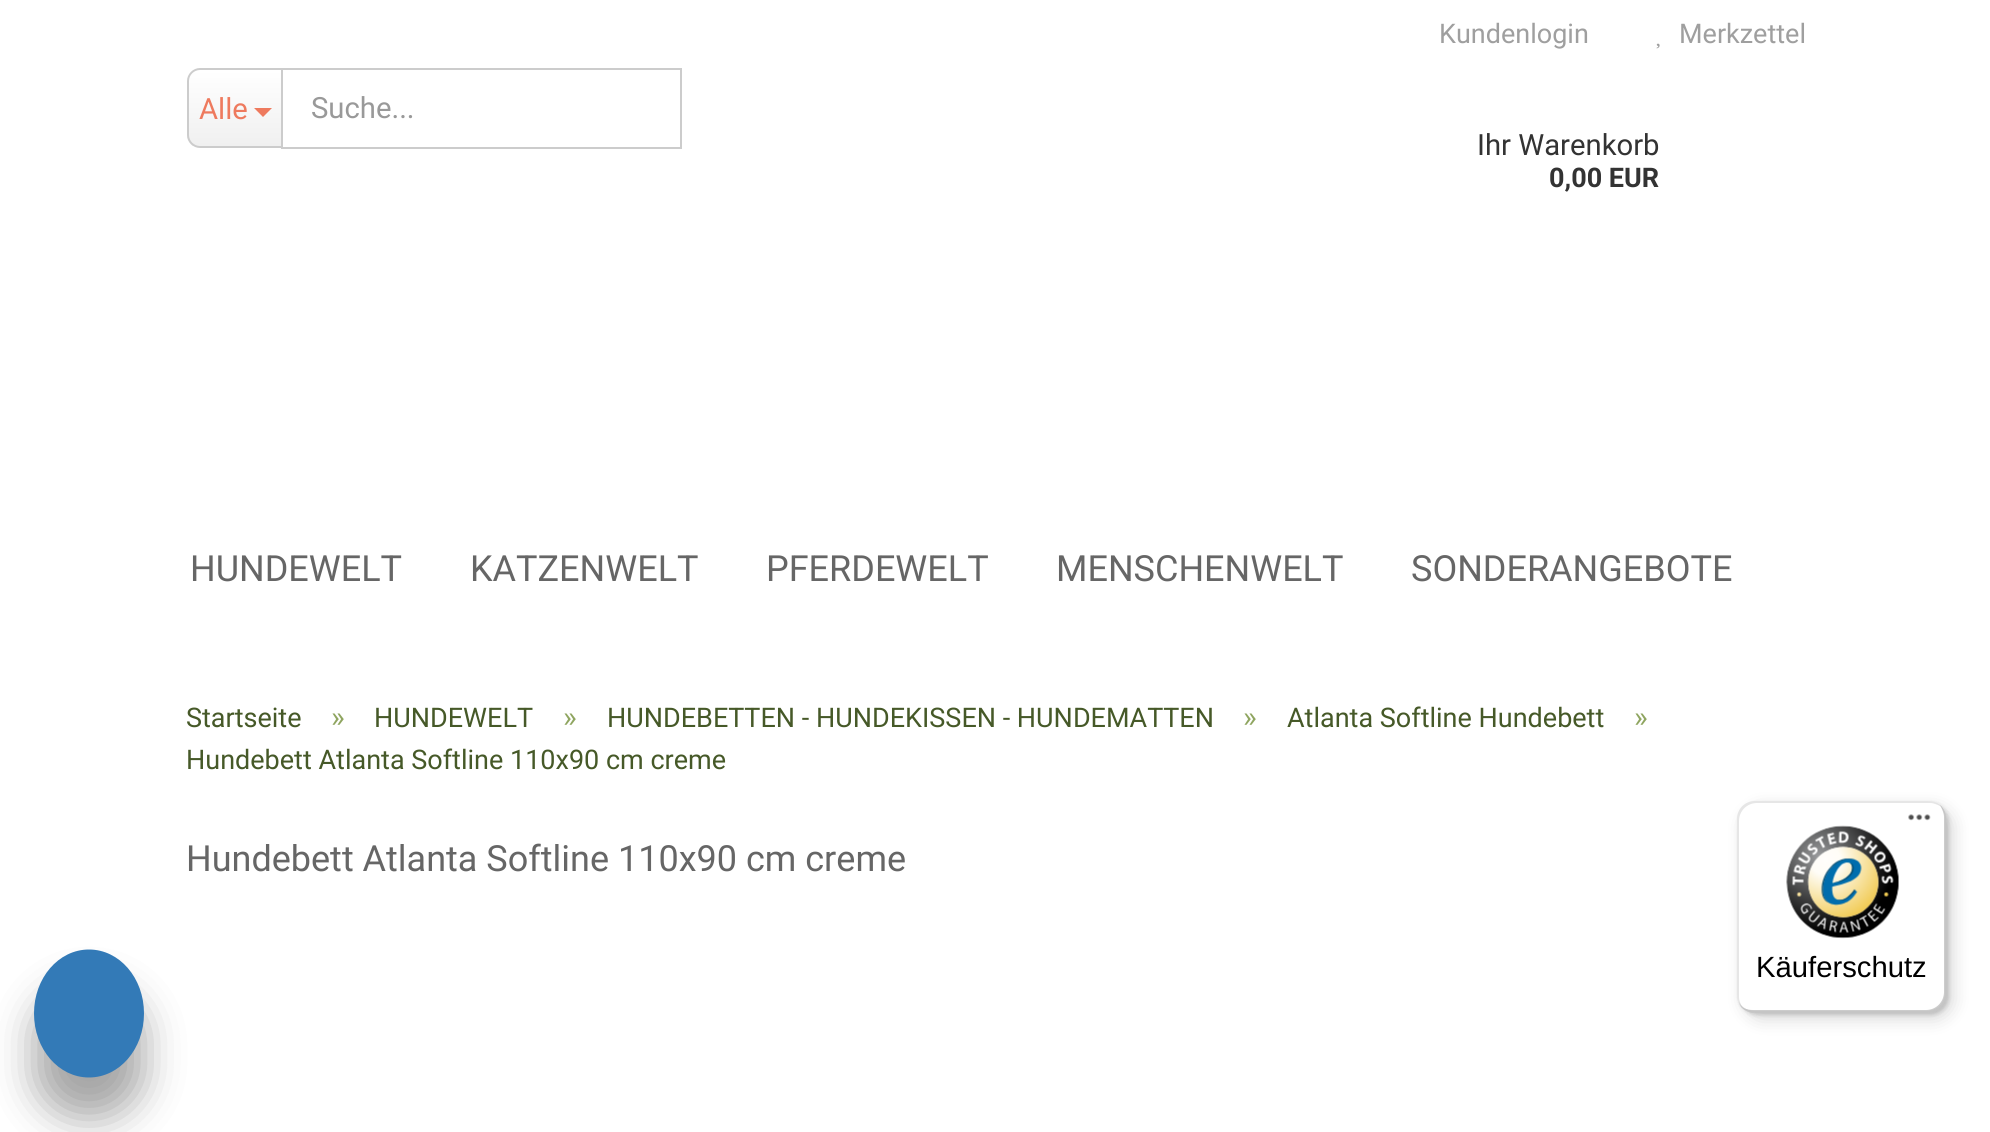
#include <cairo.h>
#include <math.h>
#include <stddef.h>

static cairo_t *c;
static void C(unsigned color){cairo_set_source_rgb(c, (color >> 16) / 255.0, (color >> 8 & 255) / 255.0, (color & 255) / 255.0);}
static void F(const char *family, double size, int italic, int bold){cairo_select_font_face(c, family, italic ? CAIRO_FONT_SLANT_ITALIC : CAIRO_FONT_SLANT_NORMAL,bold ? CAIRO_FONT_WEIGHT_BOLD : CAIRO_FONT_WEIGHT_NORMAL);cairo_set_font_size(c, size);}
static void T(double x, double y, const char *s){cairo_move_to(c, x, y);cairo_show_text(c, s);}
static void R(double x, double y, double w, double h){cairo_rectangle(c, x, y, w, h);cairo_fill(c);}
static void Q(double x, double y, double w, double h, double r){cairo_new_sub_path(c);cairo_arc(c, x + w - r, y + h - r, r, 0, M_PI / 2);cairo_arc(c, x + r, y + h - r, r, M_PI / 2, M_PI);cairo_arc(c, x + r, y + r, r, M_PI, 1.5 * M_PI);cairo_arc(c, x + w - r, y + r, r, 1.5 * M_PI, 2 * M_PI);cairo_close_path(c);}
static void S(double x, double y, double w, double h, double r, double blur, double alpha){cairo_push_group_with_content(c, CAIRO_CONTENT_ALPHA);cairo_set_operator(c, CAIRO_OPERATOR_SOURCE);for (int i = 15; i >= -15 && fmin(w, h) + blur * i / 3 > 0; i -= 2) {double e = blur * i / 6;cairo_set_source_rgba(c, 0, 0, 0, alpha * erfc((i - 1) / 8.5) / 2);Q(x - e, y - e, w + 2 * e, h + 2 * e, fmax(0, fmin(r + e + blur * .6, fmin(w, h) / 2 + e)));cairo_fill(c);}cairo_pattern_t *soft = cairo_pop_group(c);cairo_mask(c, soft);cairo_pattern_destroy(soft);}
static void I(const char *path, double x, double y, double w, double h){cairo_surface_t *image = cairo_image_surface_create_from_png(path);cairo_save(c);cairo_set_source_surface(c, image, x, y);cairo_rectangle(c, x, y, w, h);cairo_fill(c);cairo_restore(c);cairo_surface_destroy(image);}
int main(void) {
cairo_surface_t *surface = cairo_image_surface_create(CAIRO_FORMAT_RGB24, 1990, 1132);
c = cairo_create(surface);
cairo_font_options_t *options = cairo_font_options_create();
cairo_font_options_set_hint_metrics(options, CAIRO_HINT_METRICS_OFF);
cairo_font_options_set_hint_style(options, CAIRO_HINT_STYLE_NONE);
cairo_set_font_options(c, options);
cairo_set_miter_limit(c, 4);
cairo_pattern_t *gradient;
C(0xffffff);
cairo_paint(c);
F("Roboto",27,0,0);
C(0x9f9f9f);
T(1439,43,"Kundenlogin");
T(1679,43,"Merkzettel");
I("1.png",1656,43,4,6);
cairo_save(c);
cairo_new_path(c);
cairo_move_to(c,201,68);
cairo_line_to(c,281,68);
cairo_line_to(c,281,149);
cairo_line_to(c,201,149);
cairo_curve_to(c,193.5,149,187,142.5,187,135);
cairo_line_to(c,187,82);
cairo_curve_to(c,187,74.5,193.5,68,201,68);
cairo_close_path(c);
cairo_clip(c);
gradient = cairo_pattern_create_linear(235,70,235,146);
cairo_pattern_add_color_stop_rgba(gradient,0,1,1,1,1);
cairo_pattern_add_color_stop_rgba(gradient,1,0.941,0.941,0.941,1);
cairo_set_source(c,gradient);
cairo_pattern_destroy(gradient);
R(187,70,94,76);
cairo_restore(c);
C(0xcccccc);
cairo_set_fill_rule(c,CAIRO_FILL_RULE_EVEN_ODD);
cairo_new_path(c);
cairo_move_to(c,200,68);
cairo_line_to(c,281,68);
cairo_line_to(c,281,148);
cairo_line_to(c,200,148);
cairo_curve_to(c,193,148,187,142,187,135);
cairo_line_to(c,187,81);
cairo_curve_to(c,187,74,193,68,200,68);
cairo_close_path(c);
cairo_move_to(c,200,70);
cairo_line_to(c,281,70);
cairo_line_to(c,281,146);
cairo_line_to(c,200,146);
cairo_curve_to(c,194,146,189,141,189,135);
cairo_line_to(c,189,81);
cairo_curve_to(c,189,75,194,70,200,70);
cairo_close_path(c);
cairo_fill(c);
F("Roboto",29.25,0,0);
C(0xee7a5e);
T(199,119,"Alle");
cairo_set_fill_rule(c,CAIRO_FILL_RULE_WINDING);
cairo_new_path(c);
cairo_move_to(c,254,108);
cairo_line_to(c,272,108);
cairo_line_to(c,263,117);
cairo_close_path(c);
cairo_fill(c);
cairo_rectangle(c,282,69,399,79);
C(0xcccccc);
cairo_stroke(c);
C(0x999999);
T(311,118,"Suche...");
C(0x333333);
T(1477,155,"Ihr Warenkorb");
F("Roboto",27,0,1);
T(1549,187,"0,00 EUR");
F("Roboto",36,0,0);
C(0x666666);
T(190,581,"HUNDEWELT");
T(470,581,"KATZENWELT");
T(766,581,"PFERDEWELT");
T(1056,581,"MENSCHENWELT");
T(1411,581,"SONDERANGEBOTE");
F("Roboto",27,0,0);
C(0x465928);
T(186,727,"Startseite");
F("Roboto",29.25,0,0);
C(0x8fa560);
T(331,727,"»");
F("Roboto",27,0,0);
C(0x465928);
T(374,727,"HUNDEWELT");
F("Roboto",29.25,0,0);
C(0x8fa560);
T(563,727,"»");
F("Roboto",27,0,0);
C(0x465928);
T(607,727,"HUNDEBETTEN - HUNDEKISSEN - HUNDEMATTEN");
F("Roboto",29.25,0,0);
C(0x8fa560);
T(1243,727,"»");
F("Roboto",27,0,0);
C(0x465928);
T(1287,727,"Atlanta Softline Hundebett");
F("Roboto",29.25,0,0);
C(0x8fa560);
T(1634,727,"»");
F("Roboto",27,0,0);
C(0x465928);
T(186,769,"Hundebett Atlanta Softline 110x90 cm creme");
F("Roboto",36,0,0);
C(0x666666);
T(186,871,"Hundebett Atlanta Softline 110x90 cm creme");
C(0x000000);
S(34,990,110,128,55,20,.35);
C(0x337ab7);
cairo_new_path(c);
cairo_move_to(c,89,949.5);
cairo_curve_to(c,119.5,949.5,144,978,144,1013.5);
cairo_curve_to(c,144,1049,119.5,1077.5,89,1077.5);
cairo_curve_to(c,58.5,1077.5,34,1049,34,1013.5);
cairo_curve_to(c,34,978,58.5,949.5,89,949.5);
cairo_close_path(c);
cairo_fill(c);
C(0x000000);
S(1744,808,209,211,18,9,.15);
S(1739,803,210,212,18,2,.15);
C(0xffffff);
Q(1737,801,209,212,18);
cairo_fill(c);
cairo_set_source_rgba(c,0,0,0,0.1);
cairo_new_path(c);
cairo_move_to(c,1757,803);
cairo_line_to(c,1930,803);
cairo_curve_to(c,1934,803,1938,805,1942,807);
cairo_curve_to(c,1938,803,1933,801,1928,801);
cairo_line_to(c,1755,801);
cairo_curve_to(c,1745,801,1737,809,1737,819);
cairo_line_to(c,1737,995);
cairo_curve_to(c,1737,1000,1739,1005,1743,1009);
cairo_curve_to(c,1741,1005,1739,1001,1739,997);
cairo_line_to(c,1739,821);
cairo_curve_to(c,1739,811,1747,803,1757,803);
cairo_close_path(c);
cairo_fill(c);
cairo_set_source_rgba(c,0,0,0,0.2);
cairo_new_path(c);
cairo_move_to(c,1739,1004);
cairo_curve_to(c,1742,1009,1748,1013,1755,1013);
cairo_line_to(c,1928,1013);
cairo_curve_to(c,1938,1013,1946,1005,1946,995);
cairo_line_to(c,1946,819);
cairo_curve_to(c,1946,814,1944,809,1940,805);
cairo_curve_to(c,1942,809,1944,813,1944,817);
cairo_line_to(c,1944,992);
cairo_curve_to(c,1944,1002,1936,1010,1926,1010);
cairo_line_to(c,1753,1010);
cairo_curve_to(c,1747,1010,1742,1008,1739,1004);
cairo_close_path(c);
cairo_fill(c);
cairo_set_source_rgba(c,0.196,0.196,0.196,0.2);
cairo_new_path(c);
cairo_move_to(c,1739,1002);
cairo_curve_to(c,1741,1009,1748,1013,1755,1013);
cairo_line_to(c,1928,1013);
cairo_curve_to(c,1938,1013,1946,1005,1946,995);
cairo_line_to(c,1946,819);
cairo_curve_to(c,1946,814,1944,809,1941,806);
cairo_curve_to(c,1943,809,1945,813,1945,818);
cairo_line_to(c,1945,993);
cairo_curve_to(c,1945,1003,1937,1011,1927,1011);
cairo_line_to(c,1754,1011);
cairo_curve_to(c,1747,1011,1742,1007,1739,1002);
cairo_close_path(c);
cairo_fill(c);
cairo_set_source_rgba(c,1,1,1,0.3);
cairo_new_path(c);
cairo_move_to(c,1739,1002);
cairo_curve_to(c,1741,1009,1748,1013,1755,1013);
cairo_line_to(c,1928,1013);
cairo_curve_to(c,1938,1013,1946,1005,1946,995);
cairo_line_to(c,1946,819);
cairo_curve_to(c,1946,814,1944,809,1941,806);
cairo_curve_to(c,1943,809,1945,813,1945,818);
cairo_line_to(c,1945,993);
cairo_curve_to(c,1945,1003,1937,1011,1927,1011);
cairo_line_to(c,1754,1011);
cairo_curve_to(c,1747,1011,1742,1007,1739,1002);
cairo_close_path(c);
cairo_fill(c);
I("2.png",1908,814,23,7);
I("3.png",1786,825,113,114);
F("Liberation Sans",29.25,0,0);
C(0x000000);
T(1756,977,"Käuferschutz");
cairo_surface_write_to_png(surface, "o.png");
cairo_font_options_destroy(options);
cairo_destroy(c);
cairo_surface_destroy(surface);
return 0;
}
